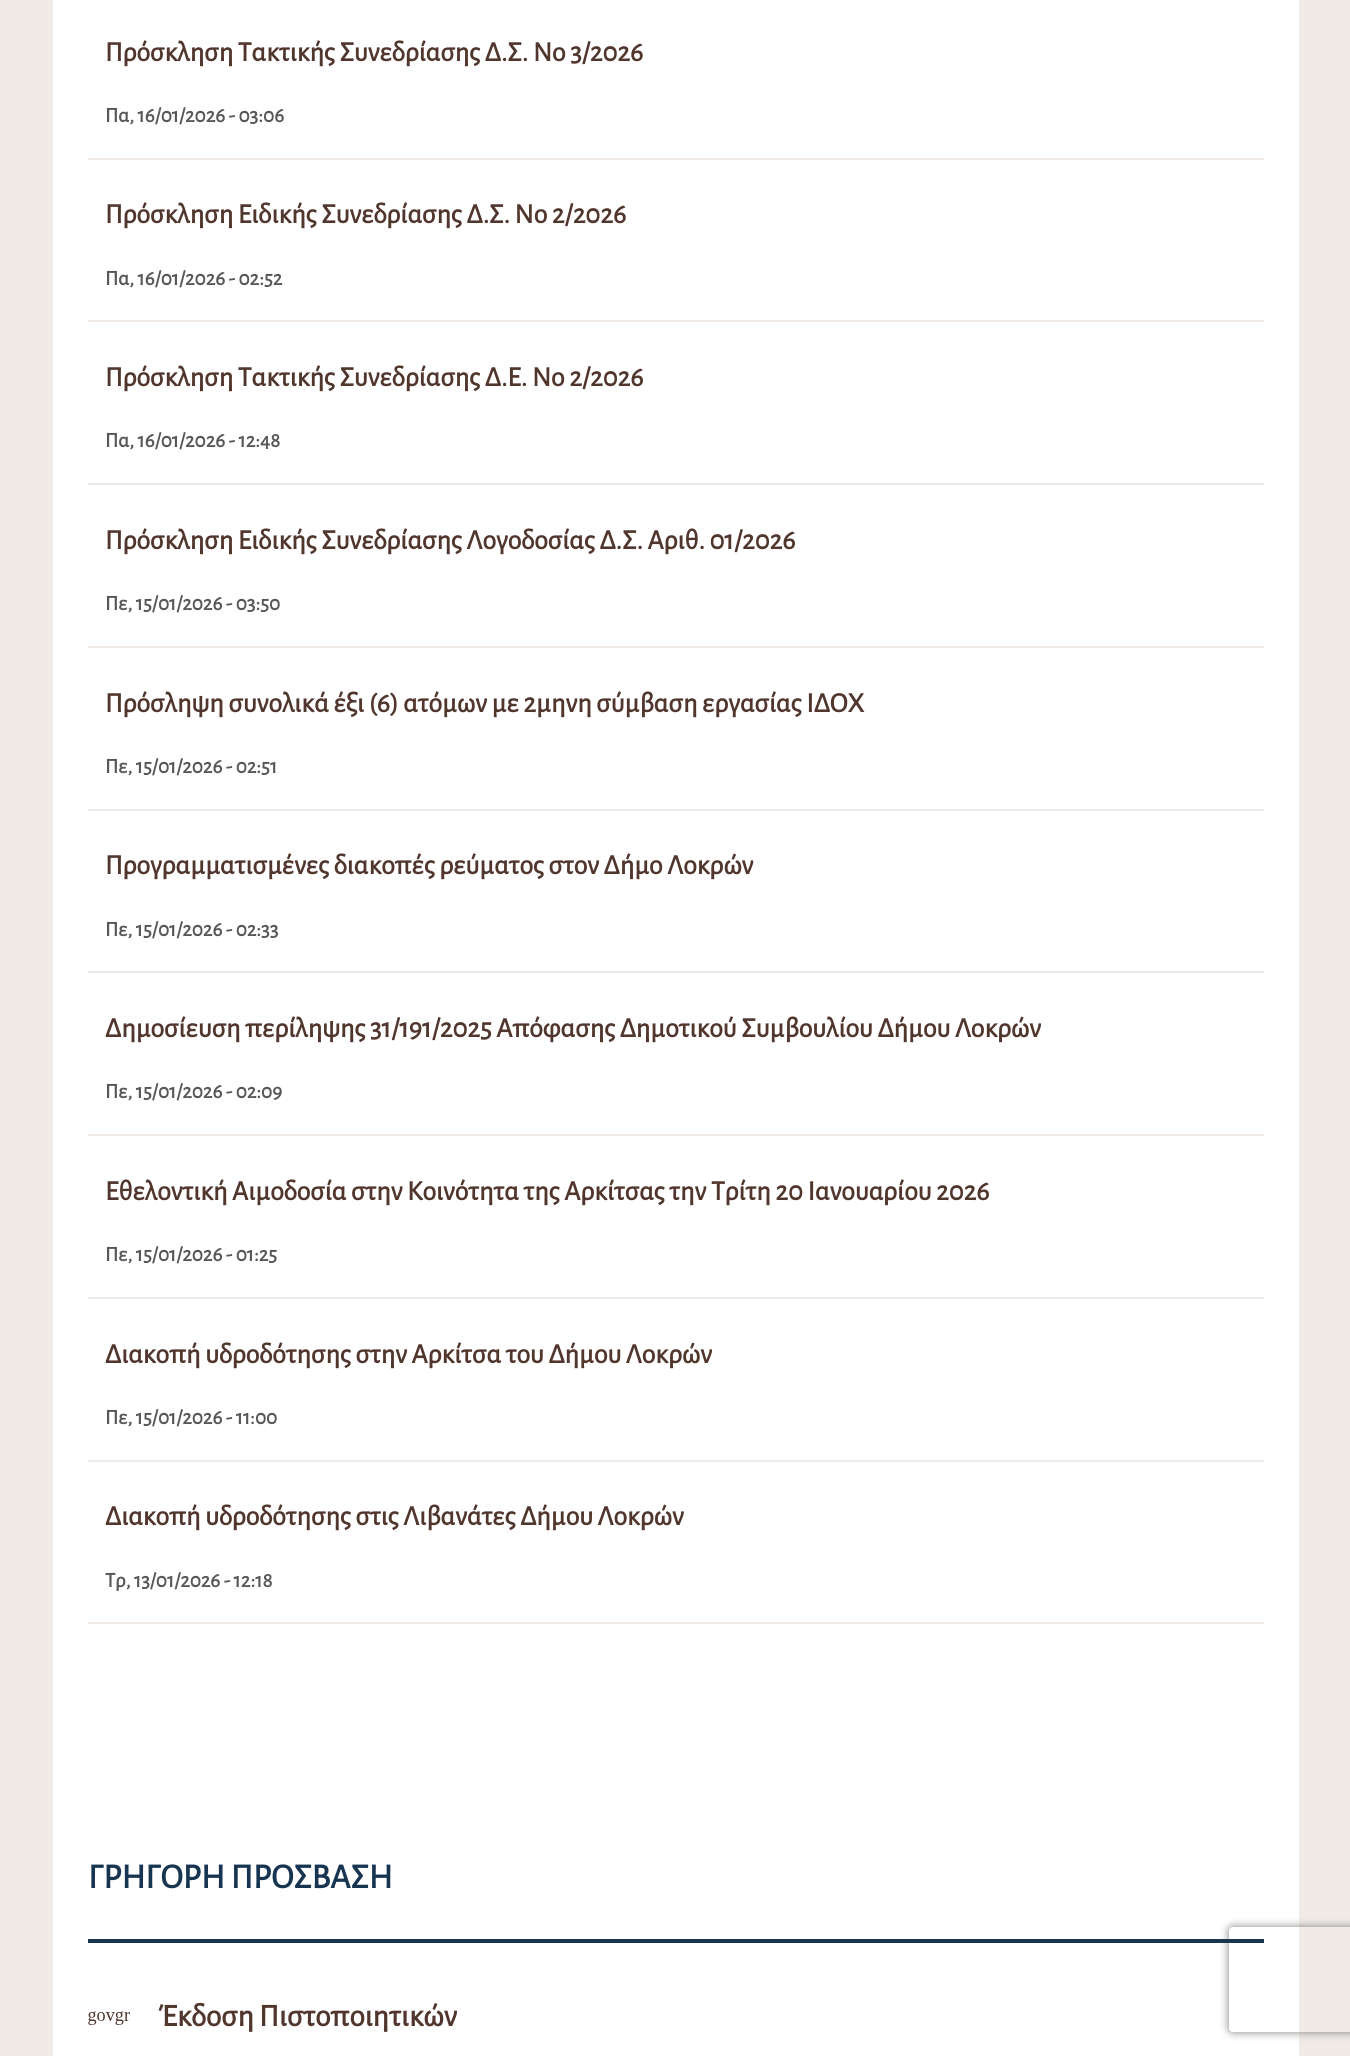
#include <cairo.h>
#include <math.h>
#include <stddef.h>

static cairo_t *c;
static void C(unsigned color){cairo_set_source_rgb(c, (color >> 16) / 255.0, (color >> 8 & 255) / 255.0, (color & 255) / 255.0);}
static void F(const char *family, double size, int italic, int bold){cairo_select_font_face(c, family, italic ? CAIRO_FONT_SLANT_ITALIC : CAIRO_FONT_SLANT_NORMAL,bold ? CAIRO_FONT_WEIGHT_BOLD : CAIRO_FONT_WEIGHT_NORMAL);cairo_set_font_size(c, size);}
static void T(double x, double y, const char *s){cairo_move_to(c, x, y);cairo_show_text(c, s);}
static void R(double x, double y, double w, double h){cairo_rectangle(c, x, y, w, h);cairo_fill(c);}
static void Q(double x, double y, double w, double h, double r){cairo_new_sub_path(c);cairo_arc(c, x + w - r, y + h - r, r, 0, M_PI / 2);cairo_arc(c, x + r, y + h - r, r, M_PI / 2, M_PI);cairo_arc(c, x + r, y + r, r, M_PI, 1.5 * M_PI);cairo_arc(c, x + w - r, y + r, r, 1.5 * M_PI, 2 * M_PI);cairo_close_path(c);}
static void S(double x, double y, double w, double h, double r, double blur, double alpha){cairo_push_group_with_content(c, CAIRO_CONTENT_ALPHA);cairo_set_operator(c, CAIRO_OPERATOR_SOURCE);for (int i = 15; i >= -15 && fmin(w, h) + blur * i / 3 > 0; i -= 2) {double e = blur * i / 6;cairo_set_source_rgba(c, 0, 0, 0, alpha * erfc((i - 1) / 8.5) / 2);Q(x - e, y - e, w + 2 * e, h + 2 * e, fmax(0, fmin(r + e + blur * .6, fmin(w, h) / 2 + e)));cairo_fill(c);}cairo_pattern_t *soft = cairo_pop_group(c);cairo_mask(c, soft);cairo_pattern_destroy(soft);}
static void I(const char *path, double x, double y, double w, double h){cairo_surface_t *image = cairo_image_surface_create_from_png(path);cairo_save(c);cairo_set_source_surface(c, image, x, y);cairo_rectangle(c, x, y, w, h);cairo_fill(c);cairo_restore(c);cairo_surface_destroy(image);}
int main(void) {
cairo_surface_t *surface = cairo_image_surface_create(CAIRO_FORMAT_RGB24, 1350, 2056);
c = cairo_create(surface);
cairo_font_options_t *options = cairo_font_options_create();
cairo_font_options_set_hint_metrics(options, CAIRO_HINT_METRICS_OFF);
cairo_font_options_set_hint_style(options, CAIRO_HINT_STYLE_NONE);
cairo_set_font_options(c, options);
cairo_set_miter_limit(c, 4);
C(0xf1ebe8);
cairo_paint(c);
C(0xffffff);
R(53,0,1246,2056);
C(0xf1ebe8);
R(88,158,1176,2);
F("Alegreya Sans",28,0,1);
C(0x51362e);
T(105,61,"Πρόσκληση Τακτικής Συνεδρίασης Δ.Σ. Νο 3/2026");
F("Alegreya Sans",21,0,1);
C(0x575757);
T(105,122,"Πα, 16/01/2026 - 03:06");
C(0xf1ebe8);
R(88,320,1176,2);
F("Alegreya Sans",28,0,1);
C(0x51362e);
T(105,223,"Πρόσκληση Ειδικής Συνεδρίασης Δ.Σ. Νο 2/2026");
F("Alegreya Sans",21,0,1);
C(0x575757);
T(105,285,"Πα, 16/01/2026 - 02:52");
C(0xf1ebe8);
R(88,483,1176,2);
F("Alegreya Sans",28,0,1);
C(0x51362e);
T(105,386,"Πρόσκληση Τακτικής Συνεδρίασης Δ.Ε. Νο 2/2026");
F("Alegreya Sans",21,0,1);
C(0x575757);
T(105,447,"Πα, 16/01/2026 - 12:48");
C(0xf1ebe8);
R(88,646,1176,2);
F("Alegreya Sans",28,0,1);
C(0x51362e);
T(105,549,"Πρόσκληση Ειδικής Συνεδρίασης Λογοδοσίας Δ.Σ. Αριθ. 01/2026");
F("Alegreya Sans",21,0,1);
C(0x575757);
T(105,610,"Πε, 15/01/2026 - 03:50");
C(0xf1ebe8);
R(88,809,1176,2);
F("Alegreya Sans",28,0,1);
C(0x51362e);
T(105,712,"Πρόσληψη συνολικά έξι (6) ατόμων με 2μηνη σύμβαση εργασίας ΙΔΟΧ");
F("Alegreya Sans",21,0,1);
C(0x575757);
T(105,773,"Πε, 15/01/2026 - 02:51");
C(0xf1ebe8);
R(88,971,1176,2);
F("Alegreya Sans",28,0,1);
C(0x51362e);
T(105,874,"Προγραμματισμένες διακοπές ρεύματος στον Δήμο Λοκρών");
F("Alegreya Sans",21,0,1);
C(0x575757);
T(105,936,"Πε, 15/01/2026 - 02:33");
C(0xf1ebe8);
R(88,1134,1176,2);
F("Alegreya Sans",28,0,1);
C(0x51362e);
T(105,1037,"Δημοσίευση περίληψης 31/191/2025 Απόφασης Δημοτικού Συμβουλίου Δήμου Λοκρών");
F("Alegreya Sans",21,0,1);
C(0x575757);
T(105,1098,"Πε, 15/01/2026 - 02:09");
C(0xf1ebe8);
R(88,1297,1176,2);
F("Alegreya Sans",28,0,1);
C(0x51362e);
T(105,1200,"Εθελοντική Αιμοδοσία στην Κοινότητα της Αρκίτσας την Τρίτη 20 Ιανουαρίου 2026");
F("Alegreya Sans",21,0,1);
C(0x575757);
T(105,1261,"Πε, 15/01/2026 - 01:25");
C(0xf1ebe8);
R(88,1460,1176,2);
F("Alegreya Sans",28,0,1);
C(0x51362e);
T(105,1363,"Διακοπή υδροδότησης στην Αρκίτσα του Δήμου Λοκρών");
F("Alegreya Sans",21,0,1);
C(0x575757);
T(105,1424,"Πε, 15/01/2026 - 11:00");
C(0xf1ebe8);
R(88,1622,1176,2);
F("Alegreya Sans",28,0,1);
C(0x51362e);
T(105,1525,"Διακοπή υδροδότησης στις Λιβανάτες Δήμου Λοκρών");
F("Alegreya Sans",21,0,1);
C(0x575757);
T(105,1587,"Τρ, 13/01/2026 - 12:18");
cairo_save(c);
cairo_set_fill_rule(c,CAIRO_FILL_RULE_EVEN_ODD);
cairo_new_path(c);
cairo_move_to(c,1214,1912);
cairo_line_to(c,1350,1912);
cairo_line_to(c,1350,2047);
cairo_line_to(c,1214,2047);
cairo_close_path(c);
cairo_move_to(c,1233,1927);
cairo_line_to(c,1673,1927);
cairo_curve_to(c,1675,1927,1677,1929,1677,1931);
cairo_line_to(c,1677,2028);
cairo_curve_to(c,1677,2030,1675,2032,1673,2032);
cairo_line_to(c,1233,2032);
cairo_curve_to(c,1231,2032,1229,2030,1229,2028);
cairo_line_to(c,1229,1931);
cairo_curve_to(c,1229,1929,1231,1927,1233,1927);
cairo_close_path(c);
cairo_clip(c);
C(0x808080);
S(1229,1927,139,105,4,4.5,1);
cairo_restore(c);
C(0x173551);
R(88,1939,1176,4);
F("Alegreya Sans",35,0,1);
T(88,1888,"ΓΡΗΓΟΡΗ ΠΡΟΣΒΑΣΗ");
I("1.png",88,2011,42,14);
F("Alegreya Sans",31.5,0,1);
C(0x51362e);
T(158,2026,"Έκδοση Πιστοποιητικών");
cairo_surface_write_to_png(surface, "o.png");
cairo_font_options_destroy(options);
cairo_destroy(c);
cairo_surface_destroy(surface);
return 0;
}
